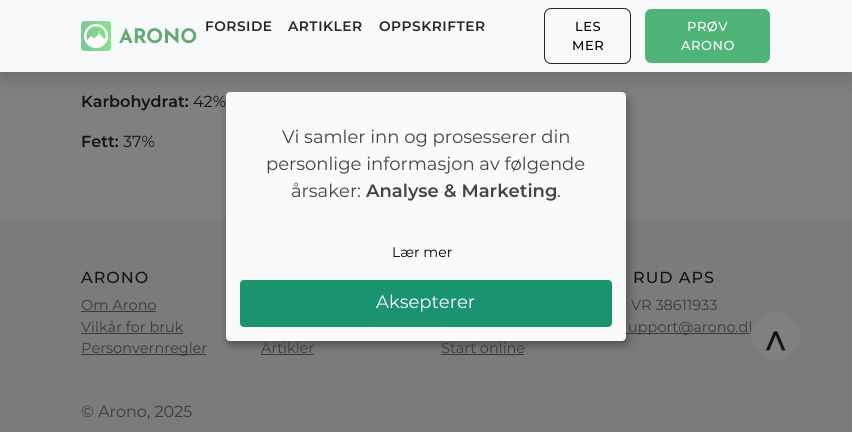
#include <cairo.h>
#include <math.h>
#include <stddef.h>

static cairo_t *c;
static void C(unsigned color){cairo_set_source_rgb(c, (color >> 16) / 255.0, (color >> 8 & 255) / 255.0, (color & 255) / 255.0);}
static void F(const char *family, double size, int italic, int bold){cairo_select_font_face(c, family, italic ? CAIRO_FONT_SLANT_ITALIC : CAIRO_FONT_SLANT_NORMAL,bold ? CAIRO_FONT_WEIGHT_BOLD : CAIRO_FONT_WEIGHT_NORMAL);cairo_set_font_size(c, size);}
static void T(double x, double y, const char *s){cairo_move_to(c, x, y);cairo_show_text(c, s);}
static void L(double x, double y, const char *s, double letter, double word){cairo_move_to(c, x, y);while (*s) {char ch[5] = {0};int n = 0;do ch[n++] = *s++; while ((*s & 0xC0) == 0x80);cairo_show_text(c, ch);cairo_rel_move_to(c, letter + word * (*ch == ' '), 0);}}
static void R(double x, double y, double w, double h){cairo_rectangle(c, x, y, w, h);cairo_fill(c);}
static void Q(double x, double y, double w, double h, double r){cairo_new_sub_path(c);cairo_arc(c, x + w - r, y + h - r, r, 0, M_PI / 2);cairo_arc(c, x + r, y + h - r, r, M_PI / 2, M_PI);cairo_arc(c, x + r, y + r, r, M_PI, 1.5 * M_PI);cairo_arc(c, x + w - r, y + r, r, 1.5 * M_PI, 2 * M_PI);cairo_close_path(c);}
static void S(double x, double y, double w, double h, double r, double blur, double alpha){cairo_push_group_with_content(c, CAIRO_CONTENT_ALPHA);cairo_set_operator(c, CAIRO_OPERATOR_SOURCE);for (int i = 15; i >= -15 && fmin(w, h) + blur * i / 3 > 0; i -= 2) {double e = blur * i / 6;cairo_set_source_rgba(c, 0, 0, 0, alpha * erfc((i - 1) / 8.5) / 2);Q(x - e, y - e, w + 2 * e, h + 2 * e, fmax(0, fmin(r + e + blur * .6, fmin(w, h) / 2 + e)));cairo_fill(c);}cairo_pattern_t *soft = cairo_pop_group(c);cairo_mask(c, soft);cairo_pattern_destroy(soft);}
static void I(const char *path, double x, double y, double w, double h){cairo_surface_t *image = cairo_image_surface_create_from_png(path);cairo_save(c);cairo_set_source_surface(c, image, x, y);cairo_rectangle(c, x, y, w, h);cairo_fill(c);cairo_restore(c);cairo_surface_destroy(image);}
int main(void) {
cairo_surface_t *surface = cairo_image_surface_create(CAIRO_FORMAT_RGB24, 852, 432);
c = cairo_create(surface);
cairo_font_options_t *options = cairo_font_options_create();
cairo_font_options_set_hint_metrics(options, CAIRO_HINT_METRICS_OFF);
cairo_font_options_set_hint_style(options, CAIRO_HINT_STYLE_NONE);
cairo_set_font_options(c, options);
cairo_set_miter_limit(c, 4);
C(0x808080);
cairo_paint(c);
C(0x7b7b7b);
R(0,220,852,212);
C(0x363b3f);
R(621,333,135,1);
R(261,354,53,1);
R(441,354,83,1);
C(0x000000);
S(231,97,400,249,4,5,.19);
S(226,96,400,249,4,3,.2);
C(0xfafafa);
Q(226,92,400,249,4);
cairo_fill(c);
C(0x000000);
S(0,8,852,72,0,8,.15);
C(0xf8f9fa);
R(0,0,852,72);
I("1.png",81,21,30,30);
I("2.png",119,27,78,17);
F("Montserrat SemiBold",13.75,0,0);
C(0x252525);
L(205,31,"FORSIDE",.5,0);
L(288,31,"ARTIKLER",.5,0);
L(379,31,"OPPSKRIFTER",.5,0);
Q(544.5,8.5,86,55,6.5);
cairo_set_line_width(c,1);
cairo_stroke(c);
F("Montserrat Medium",13,0,0);
C(0x000000);
L(575,31,"LES",.5,0);
L(572,50,"MER",.5,0);
C(0x4fb477);
Q(644.5,8.5,126,55,6.5);
cairo_fill_preserve(c);
C(0xffffff);
cairo_stroke(c);
L(687,31,"PRØV",.5,0);
L(681,50,"ARONO",.5,0);
F("Montserrat SemiBold",16,0,0);
C(0x111315);
T(81,107,"Karbohydrat:");
F("Montserrat",16,0,0);
T(193,107,"42%");
F("Montserrat SemiBold",16,0,0);
T(81,147,"Fett:");
F("Montserrat",16,0,0);
T(123,147,"37%");
F("Montserrat",14.5,0,0);
C(0x363b3f);
T(628,332,"upport@arono.dk");
C(0x808080);
cairo_new_path(c);
cairo_arc(c,776,336,25.5,0,2 * M_PI);
cairo_fill_preserve(c);
C(0x767676);
cairo_stroke(c);
F("Liberation Sans",40,0,0);
C(0x111315);
T(764,355,"˄");
F("Montserrat Medium",16,0,0);
L(81,283,"ARONO",1,0);
F("Montserrat",14.5,0,0);
C(0x363b3f);
T(81,310,"Om Arono");
R(81,311,75,1);
T(81,332,"Vilkår for bruk");
R(81,333,102,1);
R(81,354,125,1);
T(81,353,"Personvernregler");
F("Montserrat Medium",16,0,0);
C(0x111315);
L(633,283,"RUD APS",1,0);
F("Montserrat",14.5,0,0);
C(0x363b3f);
T(631,310,"VR 38611933");
T(261,353,"Artikler");
T(441,353,"Start online");
F("Montserrat",16,0,0);
T(81,417,"© Arono, 2025");
F("Montserrat",18,0,0);
C(0x444444);
T(282,143,"Vi samler inn og prosesserer din");
T(266,170,"personlige informasjon av følgende");
T(291,197,"årsaker:");
F("Montserrat SemiBold",18,0,0);
T(366,197,"Analyse & Marketing");
F("Montserrat",18,0,0);
T(557,197,".");
F("Montserrat",14,0,0);
C(0x000000);
T(392,257,"Lær mer");
C(0x1a936f);
Q(240,280,372,47,4);
cairo_fill(c);
F("Montserrat",18,0,0);
C(0xffffff);
T(376,308,"Aksepterer");
cairo_surface_write_to_png(surface, "o.png");
cairo_font_options_destroy(options);
cairo_destroy(c);
cairo_surface_destroy(surface);
return 0;
}
